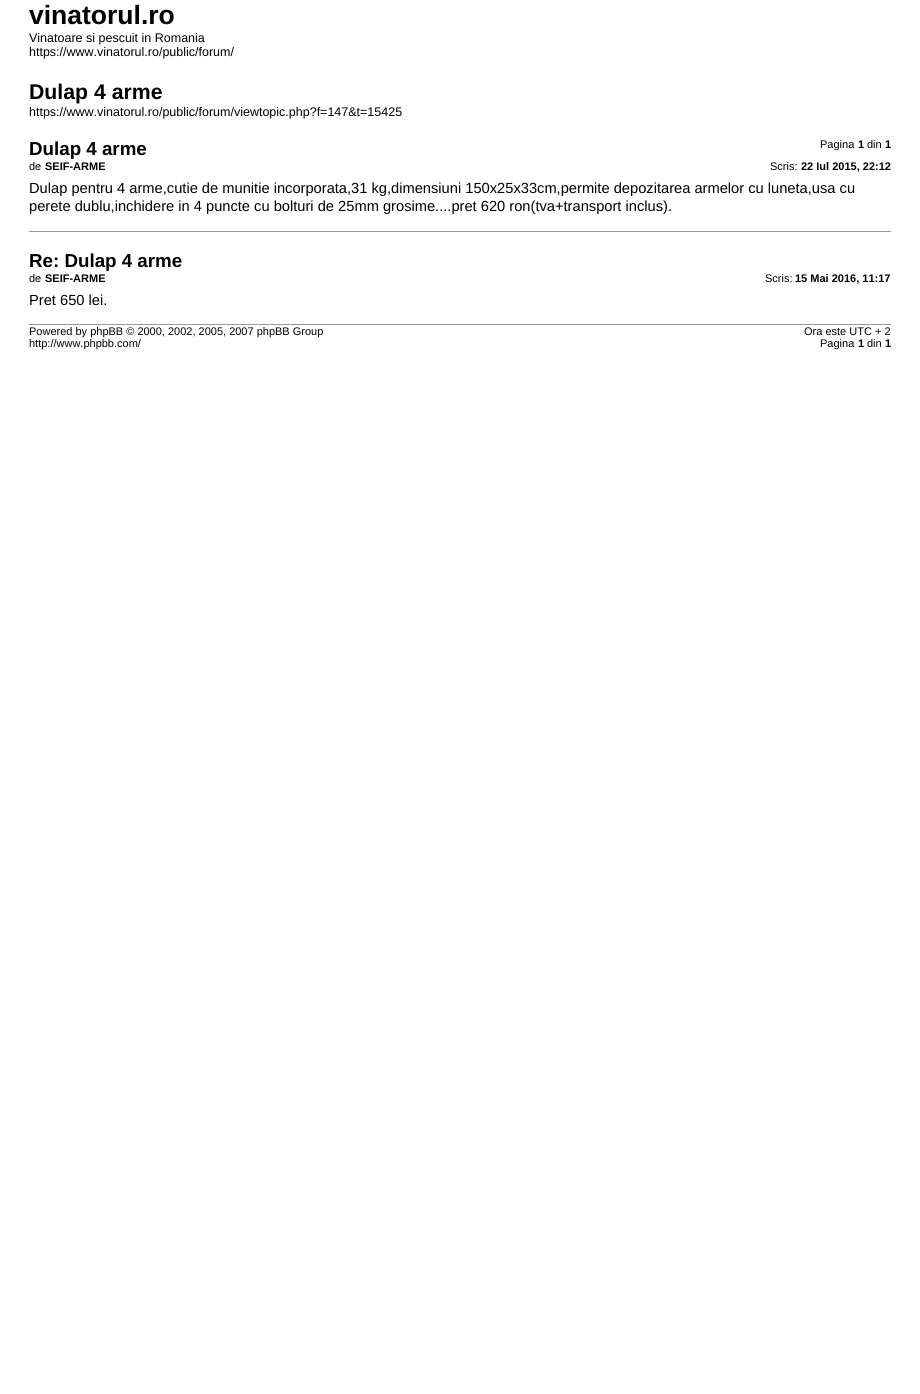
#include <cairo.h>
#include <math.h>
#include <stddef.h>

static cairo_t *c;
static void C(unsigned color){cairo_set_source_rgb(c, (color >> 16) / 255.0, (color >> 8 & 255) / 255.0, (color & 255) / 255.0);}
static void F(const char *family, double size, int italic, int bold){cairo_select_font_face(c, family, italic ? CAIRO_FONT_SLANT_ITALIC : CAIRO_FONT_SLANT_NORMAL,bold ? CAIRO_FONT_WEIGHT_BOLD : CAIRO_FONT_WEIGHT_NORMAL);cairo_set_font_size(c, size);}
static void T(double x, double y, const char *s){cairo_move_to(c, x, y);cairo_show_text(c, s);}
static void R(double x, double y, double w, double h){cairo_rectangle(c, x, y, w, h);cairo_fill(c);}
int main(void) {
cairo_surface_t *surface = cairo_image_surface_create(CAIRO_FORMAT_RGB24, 920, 1394);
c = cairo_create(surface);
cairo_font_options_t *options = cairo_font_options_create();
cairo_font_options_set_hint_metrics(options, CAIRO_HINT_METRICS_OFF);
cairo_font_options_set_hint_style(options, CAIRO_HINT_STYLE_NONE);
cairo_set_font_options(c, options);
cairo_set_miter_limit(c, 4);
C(0xffffff);
cairo_paint(c);
F("Liberation Sans",26.5,0,1);
C(0x000000);
T(29,24,"vinatorul.ro");
F("Liberation Sans",12.5,0,0);
T(29,42,"Vinatoare si pescuit in Romania");
T(29,56,"https://www.vinatorul.ro/public/forum/");
F("Liberation Sans",21.25,0,1);
T(29,99,"Dulap 4 arme");
F("Liberation Sans",12.5,0,0);
T(29,116,"https://www.vinatorul.ro/public/forum/viewtopic.php?f=147&t=15425");
F("Liberation Sans",11,0,0);
T(820,148,"Pagina");
F("Liberation Sans",11,0,1);
T(858,148,"1");
F("Liberation Sans",11,0,0);
T(867,148,"din");
F("Liberation Sans",11,0,1);
T(885,148,"1");
F("Liberation Sans",18.75,0,1);
T(29,155,"Dulap 4 arme");
F("Liberation Sans",11,0,0);
T(29,170,"de");
F("Liberation Sans",11,0,1);
T(45,170,"SEIF-ARME");
F("Liberation Sans",11,0,0);
T(770,170,"Scris:");
F("Liberation Sans",11,0,1);
T(801,170,"22 Iul 2015, 22:12");
F("Liberation Sans",14.67,0,0);
T(29,193,"Dulap pentru 4 arme,cutie de munitie incorporata,31 kg,dimensiuni 150x25x33cm,permite depozitarea armelor cu luneta,usa cu");
T(29,211,"perete dublu,inchidere in 4 puncte cu bolturi de 25mm grosime....pret 620 ron(tva+transport inclus).");
C(0x999999);
R(29,231,862,1);
F("Liberation Sans",18.75,0,1);
C(0x000000);
T(29,267,"Re: Dulap 4 arme");
F("Liberation Sans",11,0,0);
T(29,282,"de");
F("Liberation Sans",11,0,1);
T(45,282,"SEIF-ARME");
F("Liberation Sans",11,0,0);
T(765,282,"Scris:");
F("Liberation Sans",11,0,1);
T(795,282,"15 Mai 2016, 11:17");
F("Liberation Sans",14.67,0,0);
T(29,305,"Pret 650 lei.");
C(0x999999);
R(29,324,862,1);
F("Liberation Sans",11,0,0);
C(0x000000);
T(29,335,"Powered by phpBB © 2000, 2002, 2005, 2007 phpBB Group");
T(29,347,"http://www.phpbb.com/");
T(804,335,"Ora este UTC + 2");
T(820,347,"Pagina");
F("Liberation Sans",11,0,1);
T(858,347,"1");
F("Liberation Sans",11,0,0);
T(867,347,"din");
F("Liberation Sans",11,0,1);
T(885,347,"1");
cairo_surface_write_to_png(surface, "o.png");
cairo_font_options_destroy(options);
cairo_destroy(c);
cairo_surface_destroy(surface);
return 0;
}
